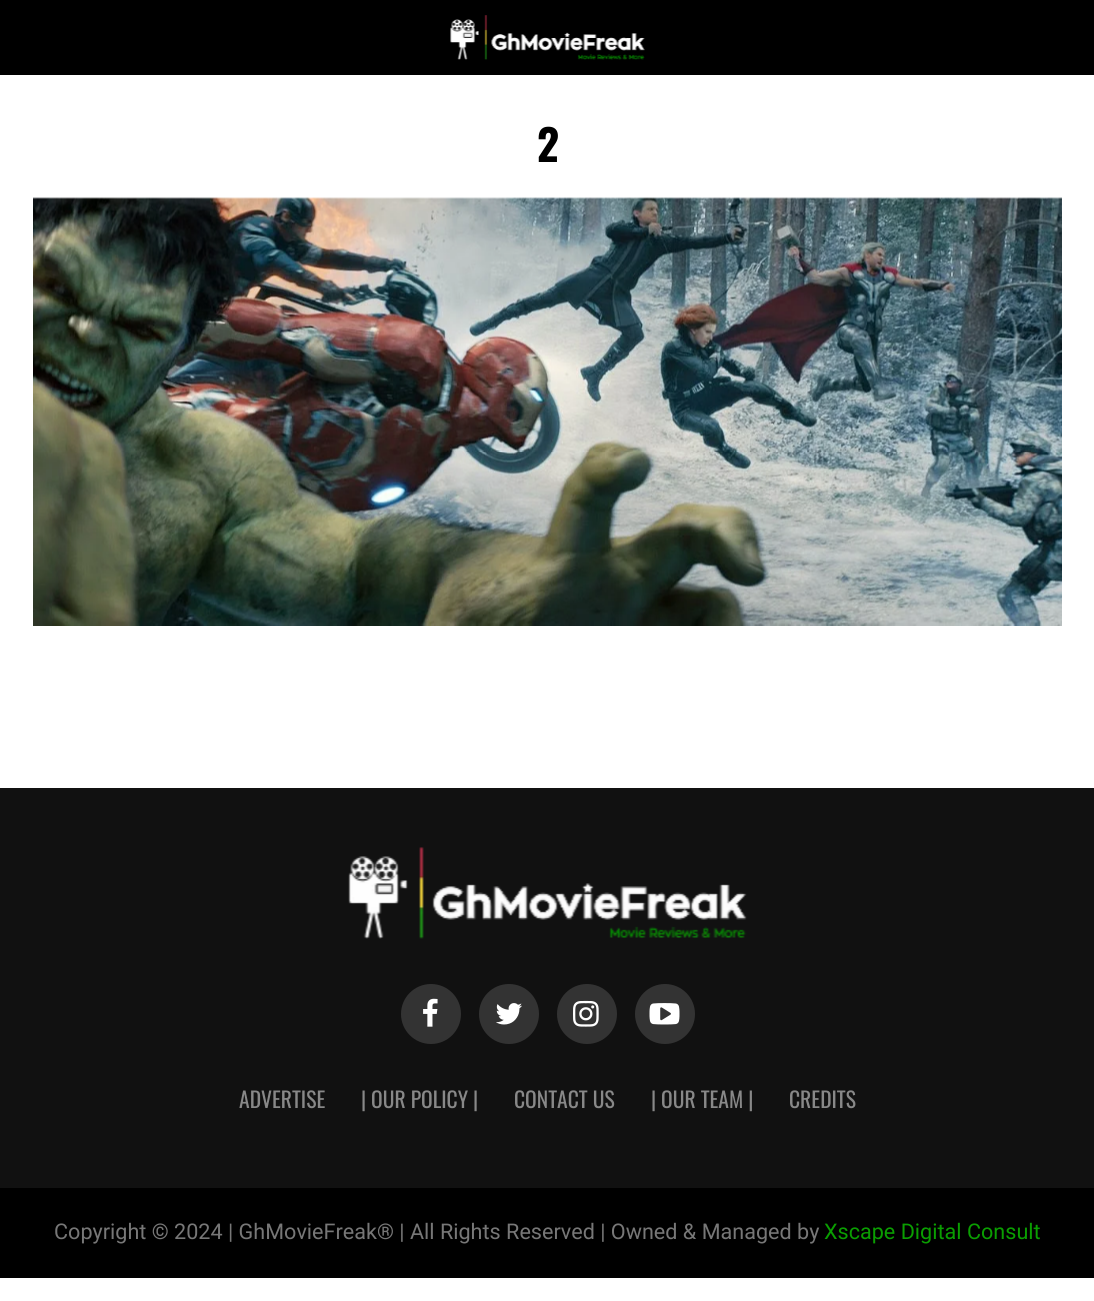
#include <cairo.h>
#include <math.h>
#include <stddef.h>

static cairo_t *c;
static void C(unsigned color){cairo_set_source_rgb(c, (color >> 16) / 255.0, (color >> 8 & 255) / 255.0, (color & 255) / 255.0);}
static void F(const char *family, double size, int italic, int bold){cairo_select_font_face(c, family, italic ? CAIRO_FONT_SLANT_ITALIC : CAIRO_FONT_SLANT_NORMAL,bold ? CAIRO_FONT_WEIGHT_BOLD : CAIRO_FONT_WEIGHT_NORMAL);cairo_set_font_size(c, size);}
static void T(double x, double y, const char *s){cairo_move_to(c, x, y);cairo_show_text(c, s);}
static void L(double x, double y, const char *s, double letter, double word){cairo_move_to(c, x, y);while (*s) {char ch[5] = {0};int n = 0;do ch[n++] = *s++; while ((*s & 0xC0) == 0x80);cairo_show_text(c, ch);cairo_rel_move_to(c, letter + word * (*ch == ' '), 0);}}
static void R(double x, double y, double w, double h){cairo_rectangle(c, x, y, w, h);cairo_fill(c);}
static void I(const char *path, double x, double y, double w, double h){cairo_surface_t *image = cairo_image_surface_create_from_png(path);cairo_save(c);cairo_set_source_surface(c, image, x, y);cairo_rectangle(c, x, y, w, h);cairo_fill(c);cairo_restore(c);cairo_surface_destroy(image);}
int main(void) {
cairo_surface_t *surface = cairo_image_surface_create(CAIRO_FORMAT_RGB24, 1094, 1301);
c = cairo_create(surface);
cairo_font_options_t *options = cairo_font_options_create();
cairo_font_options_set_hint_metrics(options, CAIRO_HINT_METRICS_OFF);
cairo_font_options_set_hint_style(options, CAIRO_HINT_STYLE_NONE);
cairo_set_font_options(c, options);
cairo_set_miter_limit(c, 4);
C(0xffffff);
cairo_paint(c);
C(0x000000);
R(0,0,1094,75);
I("1.png",450,15,195,45);
F("Oswald",43,0,1);
L(537,162,"2",-1,0);
I("2.png",33,197,1029,429);
C(0x111111);
R(0,788,1094,400);
I("3.png",348,847,399,92);
C(0x333333);
cairo_arc(c,431,1014,30,0,2 * M_PI);
cairo_fill(c);
I("4.png",423,998,15,29);
cairo_arc(c,509,1014,30,0,2 * M_PI);
cairo_fill(c);
I("5.png",496,1003,26,22);
cairo_arc(c,587,1014,30,0,2 * M_PI);
cairo_fill(c);
I("6.png",573,1000,26,27);
cairo_arc(c,665,1014,30,0,2 * M_PI);
cairo_fill(c);
I("7.png",649,1003,31,22);
F("Oswald",21.6,0,0);
C(0x888888);
T(239,1108,"ADVERTISE");
T(361,1108,"| OUR POLICY |");
T(514,1108,"CONTACT US");
T(651,1108,"| OUR TEAM |");
T(789,1108,"CREDITS");
C(0x000000);
R(0,1188,1094,90);
F("Roboto",21.6,0,0);
C(0x777777);
T(54,1239,"Copyright © 2024 | GhMovieFreak® | All Rights Reserved | Owned & Managed by");
C(0x0a9e01);
T(824,1239,"Xscape Digital Consult");
cairo_surface_write_to_png(surface, "o.png");
cairo_font_options_destroy(options);
cairo_destroy(c);
cairo_surface_destroy(surface);
return 0;
}
